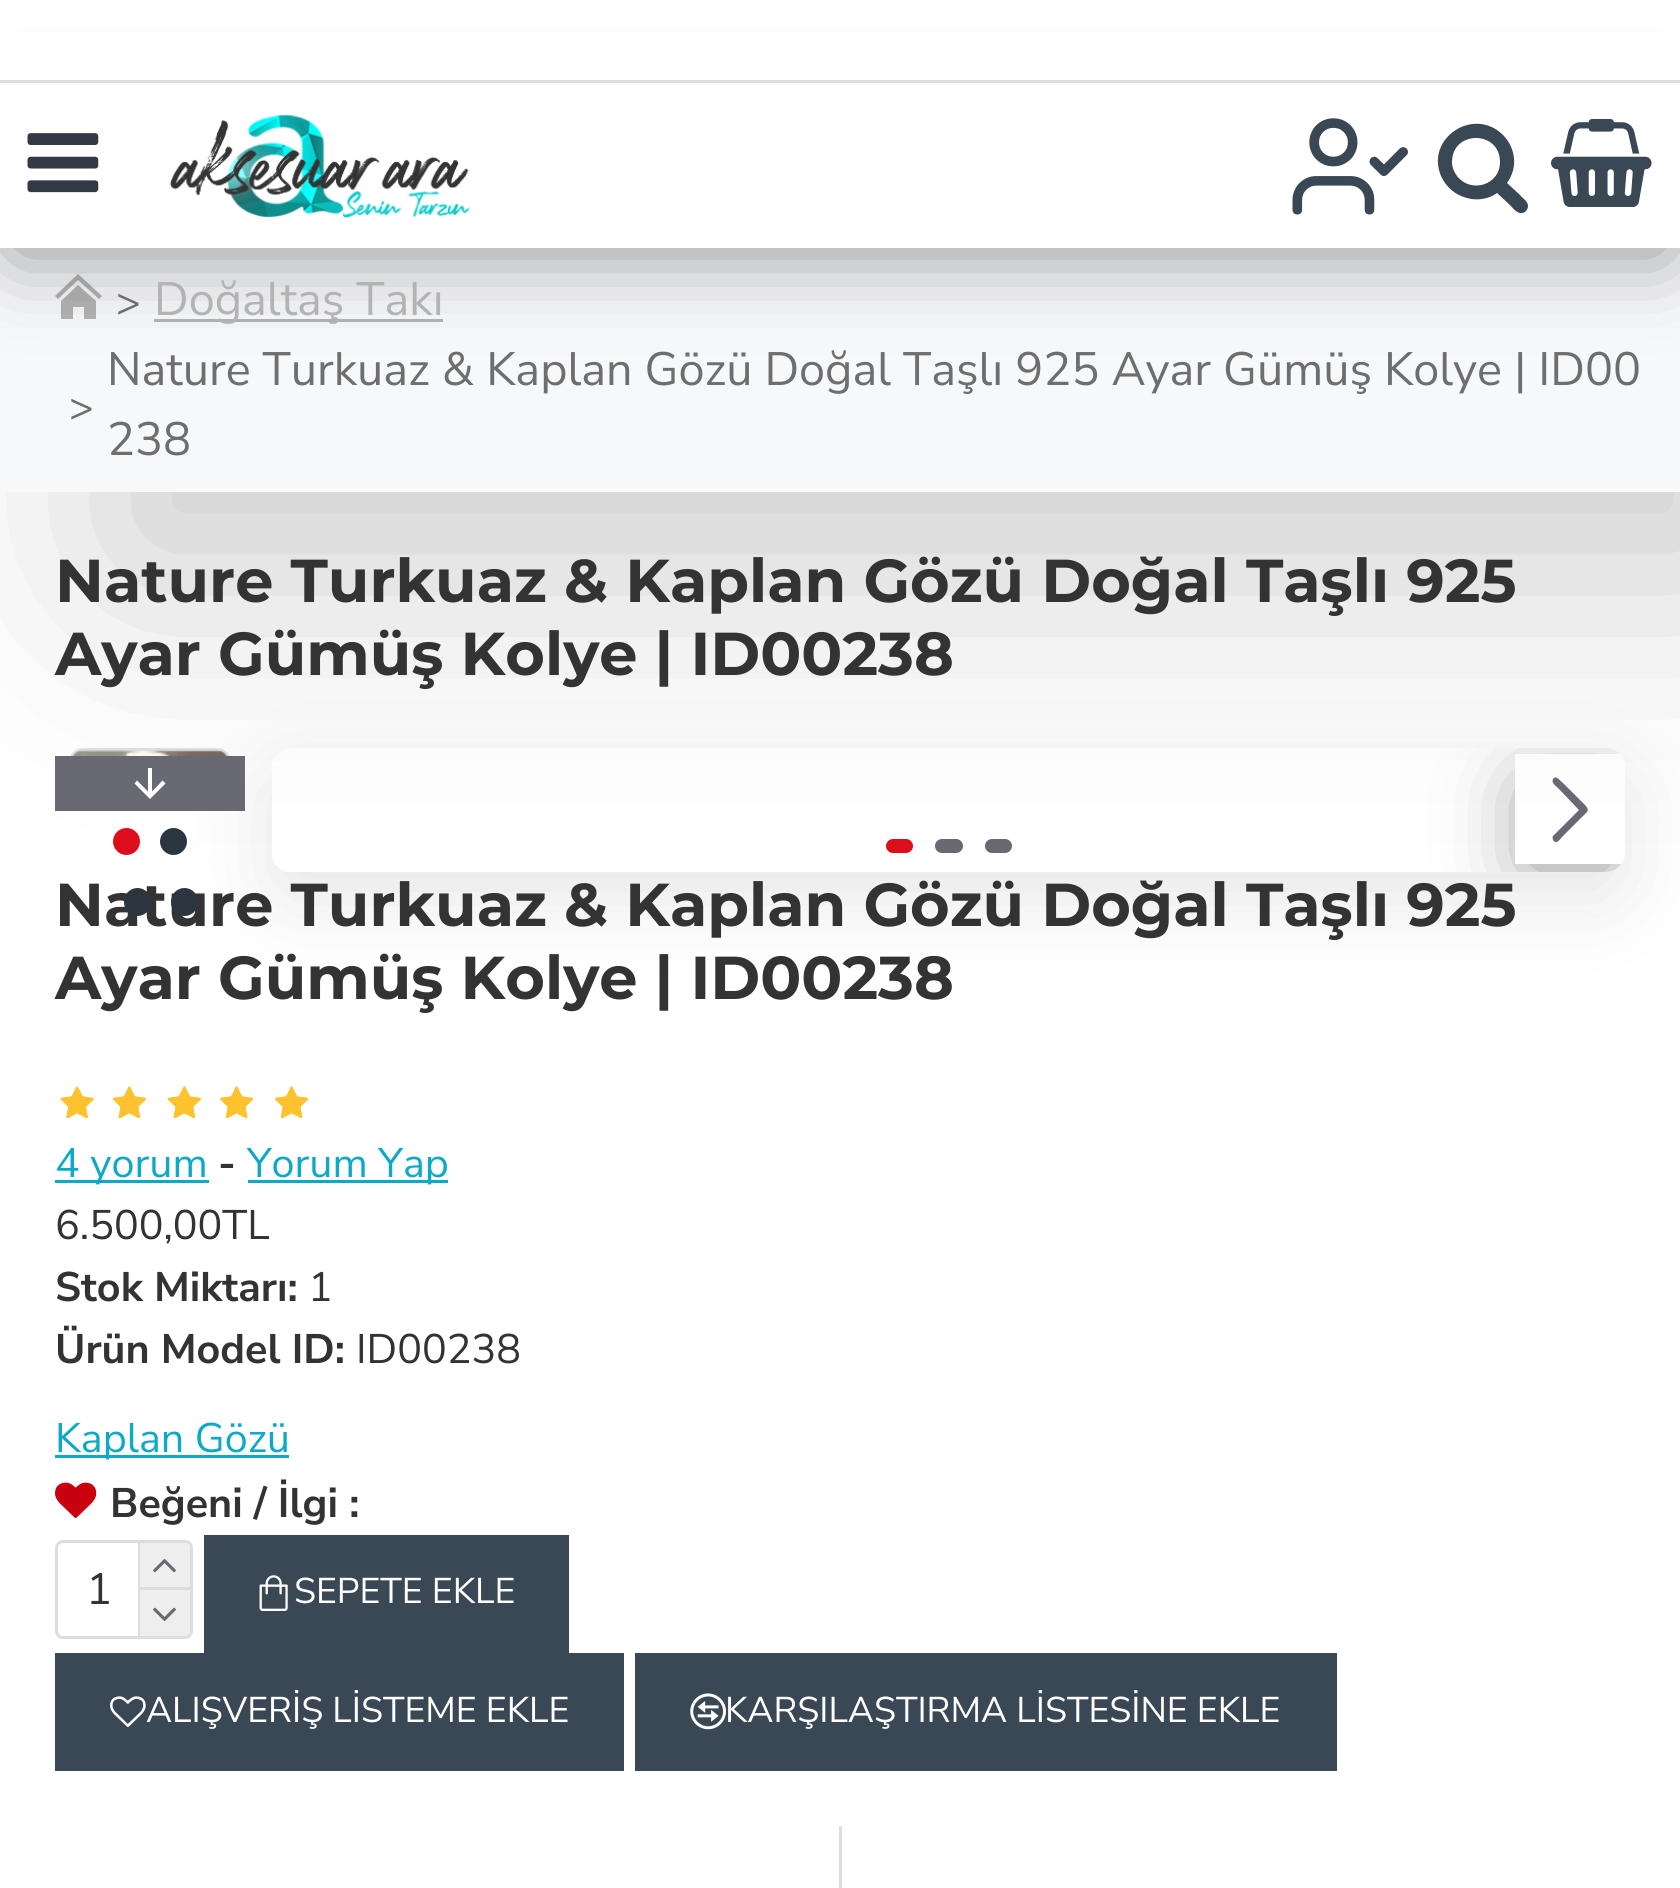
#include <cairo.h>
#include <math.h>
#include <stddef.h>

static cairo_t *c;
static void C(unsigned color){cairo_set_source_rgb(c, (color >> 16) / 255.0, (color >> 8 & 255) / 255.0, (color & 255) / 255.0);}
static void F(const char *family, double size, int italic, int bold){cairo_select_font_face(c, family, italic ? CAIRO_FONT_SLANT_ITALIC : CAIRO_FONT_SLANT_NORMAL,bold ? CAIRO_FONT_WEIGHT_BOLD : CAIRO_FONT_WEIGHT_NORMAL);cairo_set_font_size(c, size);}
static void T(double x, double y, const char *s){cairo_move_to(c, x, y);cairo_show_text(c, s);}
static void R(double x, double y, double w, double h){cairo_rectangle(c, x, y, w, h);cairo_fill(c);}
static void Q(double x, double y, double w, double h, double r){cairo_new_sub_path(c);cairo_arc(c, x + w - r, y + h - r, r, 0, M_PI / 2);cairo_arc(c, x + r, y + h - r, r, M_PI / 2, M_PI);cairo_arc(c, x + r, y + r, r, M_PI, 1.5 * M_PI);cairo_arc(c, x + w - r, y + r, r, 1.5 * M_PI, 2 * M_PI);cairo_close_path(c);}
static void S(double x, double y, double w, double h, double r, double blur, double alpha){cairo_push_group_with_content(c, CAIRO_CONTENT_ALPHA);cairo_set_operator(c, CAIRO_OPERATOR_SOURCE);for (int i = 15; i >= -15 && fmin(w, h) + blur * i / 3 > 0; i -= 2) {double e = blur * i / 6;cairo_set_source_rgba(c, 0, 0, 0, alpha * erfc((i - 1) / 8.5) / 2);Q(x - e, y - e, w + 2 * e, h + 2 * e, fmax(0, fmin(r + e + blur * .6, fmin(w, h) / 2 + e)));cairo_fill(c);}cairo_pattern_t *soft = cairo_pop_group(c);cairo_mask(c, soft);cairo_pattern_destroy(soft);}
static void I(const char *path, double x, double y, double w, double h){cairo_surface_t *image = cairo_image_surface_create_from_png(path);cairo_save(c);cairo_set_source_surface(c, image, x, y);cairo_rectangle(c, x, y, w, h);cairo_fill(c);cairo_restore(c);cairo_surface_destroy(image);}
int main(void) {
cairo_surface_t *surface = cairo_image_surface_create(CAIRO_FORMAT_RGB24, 1680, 1888);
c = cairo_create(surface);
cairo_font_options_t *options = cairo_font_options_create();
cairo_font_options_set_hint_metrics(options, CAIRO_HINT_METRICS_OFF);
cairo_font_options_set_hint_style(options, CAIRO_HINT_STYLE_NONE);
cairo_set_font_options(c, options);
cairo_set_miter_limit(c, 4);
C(0xffffff);
cairo_paint(c);
C(0x000000);
S(110,385,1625,190,0,124,.2);
C(0xf7f8fa);
R(0,248,1680,244);
C(0xb3b3b3);
cairo_new_path(c);
cairo_move_to(c,78,285);
cairo_line_to(c,96,301);
cairo_line_to(c,96,319);
cairo_line_to(c,84,319);
cairo_line_to(c,84,307);
cairo_line_to(c,73,307);
cairo_line_to(c,73,319);
cairo_line_to(c,61,319);
cairo_line_to(c,61,301);
cairo_close_path(c);
cairo_move_to(c,102,296);
cairo_line_to(c,78,274);
cairo_line_to(c,55,296);
cairo_line_to(c,58,299);
cairo_line_to(c,78,280);
cairo_line_to(c,99,299);
cairo_close_path(c);
cairo_fill(c);
R(154,319,289,3);
C(0x000000);
S(14,116,1653,137,0,41,.43);
C(0xffffff);
R(0,83,1680,165);
I("1.png",170,115,301,103);
I("2.png",27,133,72,60);
I("3.png",1292,118,116,97);
C(0x3a4754);
cairo_new_path(c);
cairo_move_to(c,1500,162);
cairo_curve_to(c,1500,130,1452,130,1452,162);
cairo_curve_to(c,1452,167,1454,172,1457,176);
cairo_curve_to(c,1471,194,1500,185,1500,162);
cairo_close_path(c);
cairo_move_to(c,1528,206);
cairo_curve_to(c,1528,209,1526,211,1525,212);
cairo_curve_to(c,1518,216,1513,208,1510,205);
cairo_line_to(c,1497,193);
cairo_curve_to(c,1489,199,1477,201,1467,198);
cairo_curve_to(c,1455,195,1446,187,1441,176);
cairo_curve_to(c,1425,138,1474,106,1503,135);
cairo_curve_to(c,1509,141,1513,149,1514,158);
cairo_curve_to(c,1515,167,1512,176,1507,183);
cairo_line_to(c,1520,195);
cairo_curve_to(c,1522,198,1528,201,1528,206);
cairo_close_path(c);
cairo_fill(c);
I("4.png",1551,119,101,88);
C(0xffffff);
R(0,34,1680,46);
C(0xdddddd);
R(0,80,1680,3);
F("Nunito Sans",41.25,0,0);
C(0x6e6e6e);
T(116,316,">");
F("Nunito Sans",46.75,0,0);
C(0xb3b3b3);
T(154,315,"Doğaltaş Takı");
F("Nunito Sans",41.25,0,0);
C(0x6e6e6e);
T(69,421,">");
F("Nunito Sans",46.75,0,0);
T(107,385,"Nature Turkuaz & Kaplan Gözü Doğal Taşlı 925 Ayar Gümüş Kolye | ID00");
T(107,455,"238");
F("Montserrat",60.5,0,1);
C(0x333333);
T(55,602,"Nature Turkuaz & Kaplan Gözü Doğal Taşlı 925");
T(55,675,"Ayar Gümüş Kolye | ID00238");
cairo_save(c);
cairo_set_fill_rule(c,CAIRO_FILL_RULE_EVEN_ODD);
cairo_new_path(c);
cairo_move_to(c,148,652);
cairo_line_to(c,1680,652);
cairo_line_to(c,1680,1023);
cairo_line_to(c,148,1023);
cairo_close_path(c);
cairo_move_to(c,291,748);
cairo_line_to(c,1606,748);
cairo_curve_to(c,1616.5,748,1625,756.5,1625,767);
cairo_line_to(c,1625,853);
cairo_curve_to(c,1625,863.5,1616.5,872,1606,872);
cairo_line_to(c,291,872);
cairo_curve_to(c,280.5,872,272,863.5,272,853);
cairo_line_to(c,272,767);
cairo_curve_to(c,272,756.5,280.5,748,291,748);
cairo_close_path(c);
cairo_clip(c);
C(0x000000);
S(272,776,1353,123,19,41,.1);
cairo_restore(c);
C(0xdd0e1c);
Q(886,839,27,14,7);
cairo_fill(c);
C(0x696973);
Q(935,839,28,14,7);
cairo_fill(c);
Q(985,839,27,14,7);
cairo_fill(c);
cairo_save(c);
Q(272,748,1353,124,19);
cairo_clip(c);
cairo_set_fill_rule(c,CAIRO_FILL_RULE_EVEN_ODD);
cairo_new_path(c);
cairo_move_to(c,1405,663);
cairo_line_to(c,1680,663);
cairo_line_to(c,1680,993);
cairo_line_to(c,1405,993);
cairo_close_path(c);
cairo_move_to(c,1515,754);
cairo_line_to(c,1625,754);
cairo_line_to(c,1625,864);
cairo_line_to(c,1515,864);
cairo_close_path(c);
cairo_clip(c);
C(0x000000);
S(1529,787,83,82,0,41,.43);
cairo_restore(c);
cairo_new_path(c);
cairo_move_to(c,1587,812);
cairo_line_to(c,1563,836);
cairo_curve_to(c,1561,838,1558,843,1555,842);
cairo_curve_to(c,1553,841,1552,838,1553,836);
cairo_line_to(c,1579,810);
cairo_line_to(c,1558,788);
cairo_curve_to(c,1556,786,1551,783,1553,779);
cairo_curve_to(c,1556,774,1561,782,1563,783);
cairo_line_to(c,1582,802);
cairo_curve_to(c,1584,804,1590,809,1587,812);
cairo_close_path(c);
cairo_fill(c);
C(0x333333);
T(55,926,"Nature Turkuaz & Kaplan Gözü Doğal Taşlı 925");
cairo_save(c);
cairo_rectangle(c,55,734,190,77);
cairo_clip(c);
Q(70.5,749.5,159,159,12.5);
C(0xdddddd);
cairo_set_line_width(c,3);
cairo_stroke(c);
cairo_restore(c);
I("5.png",72,750,155,6);
C(0x696973);
R(55,756,190,55);
C(0xffffff);
cairo_new_path(c);
cairo_move_to(c,165.5,783.5);
cairo_line_to(c,150,799);
cairo_line_to(c,134.5,783.5);
cairo_line_to(c,137,780.5);
cairo_line_to(c,148,791.5);
cairo_line_to(c,148,768);
cairo_line_to(c,152,768);
cairo_line_to(c,152,791.5);
cairo_line_to(c,162.5,780.5);
cairo_close_path(c);
cairo_fill(c);
C(0xdd0e1c);
cairo_arc(c,126.5,841.5,13.5,0,2 * M_PI);
cairo_fill(c);
C(0x2c3640);
cairo_arc(c,173.5,841.5,13.5,0,2 * M_PI);
cairo_fill(c);
Q(124,888,27,28,13.5);
cairo_fill(c);
Q(171,888,27,28,13.5);
cairo_fill(c);
C(0x333333);
T(55,999,"Ayar Gümüş Kolye | ID00238");
I("6.png",60,1086,34,33);
I("7.png",60,1086,34,33);
I("8.png",112,1086,34,33);
I("9.png",112,1086,34,33);
I("8.png",167,1086,34,33);
I("9.png",167,1086,34,33);
I("10.png",220,1086,34,33);
I("11.png",220,1086,34,33);
I("10.png",275,1086,34,33);
I("11.png",275,1086,34,33);
C(0x0ea8c9);
R(55,1180,154,3);
F("Nunito Sans",41.25,0,0);
T(55,1177,"4 yorum");
F("Nunito Sans",41.25,0,1);
C(0x333333);
T(218,1177,"-");
C(0x0ea8c9);
R(248,1180,200,3);
F("Nunito Sans",41.25,0,0);
T(247,1177,"Yorum Yap");
C(0x333333);
T(55,1239,"6.500,00TL");
F("Nunito Sans",41.25,0,1);
T(55,1301,"Stok Miktarı:");
F("Nunito Sans",41.25,0,0);
T(308,1301,"1");
F("Nunito Sans",41.25,0,1);
T(55,1363,"Ürün Model ID:");
F("Nunito Sans",41.25,0,0);
T(356,1363,"ID00238");
C(0x0ea8c9);
R(55,1455,234,3);
T(55,1452,"Kaplan Gözü");
I("12.png",55,1482,42,36);
F("Nunito Sans",41.25,0,1);
C(0x333333);
T(110,1517,"Beğeni / İlgi :");
Q(56.5,1541.5,135,96,6.5);
C(0xdddddd);
cairo_set_line_width(c,3);
cairo_stroke(c);
C(0xffffff);
Q(58,1543,132,93,6);
cairo_fill(c);
F("Nunito Sans",44,0,0);
C(0x333333);
T(86,1604,"1");
C(0xdddddd);
R(138,1543,2,93);
C(0xeeeeee);
cairo_new_path(c);
cairo_move_to(c,140,1543);
cairo_line_to(c,184,1543);
cairo_curve_to(c,187.5,1543,190,1545.5,190,1549);
cairo_line_to(c,190,1587);
cairo_line_to(c,140,1587);
cairo_close_path(c);
cairo_fill(c);
C(0xdddddd);
R(140,1587,50,3);
I("13.png",153,1559,23,14);
C(0xeeeeee);
cairo_new_path(c);
cairo_move_to(c,140,1590);
cairo_line_to(c,190,1590);
cairo_line_to(c,190,1630);
cairo_curve_to(c,190,1633.5,187.5,1636,184,1636);
cairo_line_to(c,140,1636);
cairo_close_path(c);
cairo_fill(c);
I("14.png",153,1607,23,14);
C(0x3a4754);
R(204,1535,365,118);
I("15.png",259,1575,29,36);
F("Nunito Sans",35.75,0,0);
C(0xffffff);
T(294,1603,"SEPETE EKLE");
C(0x3a4754);
R(55,1653,569,118);
I("16.png",110,1696,36,31);
C(0xffffff);
T(146,1722,"ALIŞVERİŞ LİSTEME EKLE");
C(0x3a4754);
R(635,1653,702,118);
I("17.png",690,1693,36,37);
C(0xffffff);
T(725,1722,"KARŞILAŞTIRMA LİSTESİNE EKLE");
C(0xdddddd);
R(839,1826,3,62);
cairo_surface_write_to_png(surface, "o.png");
cairo_font_options_destroy(options);
cairo_destroy(c);
cairo_surface_destroy(surface);
return 0;
}
